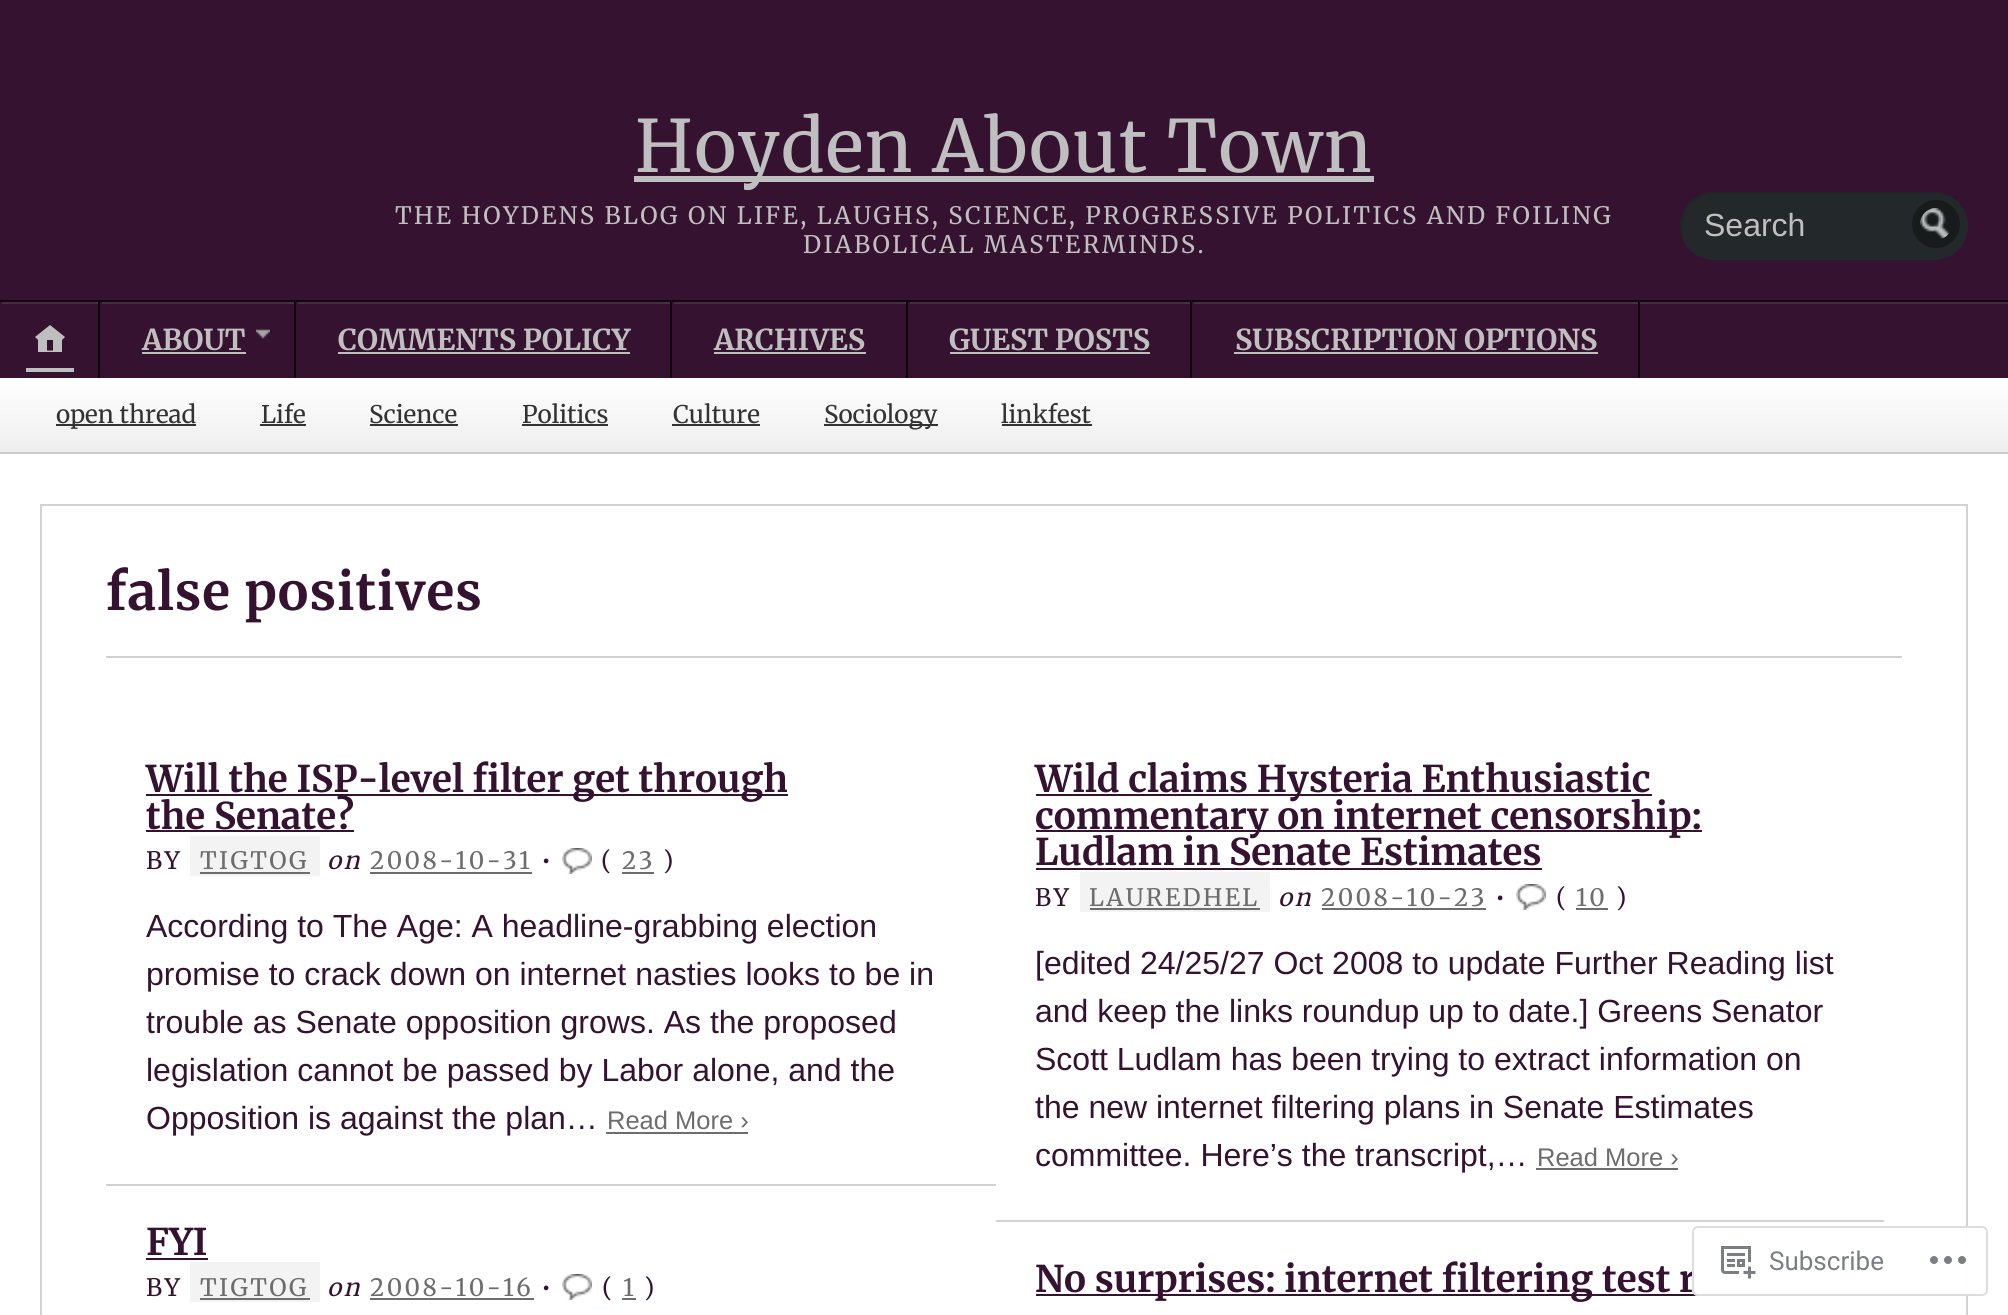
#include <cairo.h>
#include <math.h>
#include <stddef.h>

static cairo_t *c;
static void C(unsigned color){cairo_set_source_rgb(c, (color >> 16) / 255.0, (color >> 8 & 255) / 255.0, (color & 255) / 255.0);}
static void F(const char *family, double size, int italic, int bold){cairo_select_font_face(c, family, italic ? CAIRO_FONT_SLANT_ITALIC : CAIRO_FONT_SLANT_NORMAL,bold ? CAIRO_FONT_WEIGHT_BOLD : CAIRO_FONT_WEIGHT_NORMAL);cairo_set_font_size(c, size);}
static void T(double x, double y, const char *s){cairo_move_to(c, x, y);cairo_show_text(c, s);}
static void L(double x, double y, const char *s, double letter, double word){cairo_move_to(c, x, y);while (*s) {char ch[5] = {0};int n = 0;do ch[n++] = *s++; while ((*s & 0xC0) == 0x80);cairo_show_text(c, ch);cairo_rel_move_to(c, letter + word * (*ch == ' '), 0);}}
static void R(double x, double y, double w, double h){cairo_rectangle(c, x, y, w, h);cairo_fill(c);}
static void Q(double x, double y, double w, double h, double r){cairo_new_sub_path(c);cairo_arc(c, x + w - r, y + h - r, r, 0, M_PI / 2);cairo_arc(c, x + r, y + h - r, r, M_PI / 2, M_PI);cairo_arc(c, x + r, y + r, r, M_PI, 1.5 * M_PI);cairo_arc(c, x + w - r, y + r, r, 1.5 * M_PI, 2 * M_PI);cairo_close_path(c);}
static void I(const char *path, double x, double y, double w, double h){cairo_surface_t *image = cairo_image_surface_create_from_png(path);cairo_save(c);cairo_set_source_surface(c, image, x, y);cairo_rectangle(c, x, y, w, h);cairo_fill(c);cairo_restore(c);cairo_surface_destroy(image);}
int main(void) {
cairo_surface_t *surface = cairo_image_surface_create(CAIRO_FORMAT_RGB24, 2008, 1315);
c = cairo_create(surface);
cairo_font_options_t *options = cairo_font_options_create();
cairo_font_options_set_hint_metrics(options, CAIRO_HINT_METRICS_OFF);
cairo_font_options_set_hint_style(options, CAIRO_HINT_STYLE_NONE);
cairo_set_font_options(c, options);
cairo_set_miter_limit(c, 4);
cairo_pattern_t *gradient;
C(0x351330);
cairo_paint(c);
C(0xbfbfbf);
R(634,176,740,6);
F("Merriweather",72,0,0);
L(635,172,"Hoyden About Town",1.4,0);
F("Merriweather",24,0,0);
L(395,224,"THE HOYDENS BLOG ON LIFE, LAUGHS, SCIENCE, PROGRESSIVE POLITICS AND FOILING",2.4,0);
L(803,253,"DIABOLICAL MASTERMINDS.",2.4,0);
C(0x23292b);
Q(1680,192,288,68,34);
cairo_fill(c);
cairo_set_source_rgba(c,0,0,0,0.1);
cairo_new_path(c);
cairo_move_to(c,1716,194);
cairo_line_to(c,1936,194);
cairo_curve_to(c,1944,194,1952,197,1958,202);
cairo_curve_to(c,1952,196,1943,192,1934,192);
cairo_line_to(c,1714,192);
cairo_curve_to(c,1695,192,1680,207,1680,226);
cairo_curve_to(c,1680,235,1684,244,1690,250);
cairo_curve_to(c,1672,228,1687,194,1716,194);
cairo_close_path(c);
cairo_fill(c);
F("Liberation Sans",32,0,0);
C(0xbfbfbf);
T(1704,236,"Search");
C(0x171b1c);
cairo_new_path(c);
cairo_arc(c,1936,224,24,0,2 * M_PI);
cairo_fill(c);
I("1.png",1920,208,30,31);
cairo_save(c);
cairo_rectangle(c,0,302,2008,76);
cairo_clip(c);
C(0x492b45);
cairo_set_fill_rule(c,CAIRO_FILL_RULE_EVEN_ODD);
cairo_new_path(c);
cairo_move_to(c,-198,104);
cairo_line_to(c,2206,104);
cairo_line_to(c,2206,576);
cairo_line_to(c,-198,576);
cairo_close_path(c);
cairo_move_to(c,0,304);
cairo_line_to(c,2008,304);
cairo_curve_to(c,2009,304,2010,305,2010,306);
cairo_line_to(c,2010,382);
cairo_curve_to(c,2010,383,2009,384,2008,384);
cairo_line_to(c,0,384);
cairo_curve_to(c,-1,384,-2,383,-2,382);
cairo_line_to(c,-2,306);
cairo_curve_to(c,-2,305,-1,304,0,304);
cairo_close_path(c);
cairo_fill(c);
cairo_restore(c);
C(0x0e050d);
R(0,300,2008,2);
R(98,302,2,76);
C(0x351330);
R(0,302,2,2);
I("2.png",35,325,30,27);
C(0xbfbfbf);
R(26,368,48,4);
C(0x0e050d);
R(294,302,2,76);
C(0x351330);
R(100,302,2,2);
F("Merriweather",28.75,0,1);
C(0xbfbfbf);
T(142,350,"ABOUT");
R(142,352,104,2);
I("3.png",256,329,14,10);
C(0x0e050d);
R(670,302,2,76);
C(0x351330);
R(296,302,2,2);
C(0xbfbfbf);
T(338,350,"COMMENTS POLICY");
R(338,352,292,2);
C(0x0e050d);
R(906,302,2,76);
C(0x351330);
R(672,302,2,2);
C(0xbfbfbf);
T(714,350,"ARCHIVES");
R(714,352,152,2);
C(0x0e050d);
R(1190,302,2,76);
C(0x351330);
R(908,302,2,2);
C(0xbfbfbf);
T(949,350,"GUEST POSTS");
R(950,352,200,2);
C(0x0e050d);
R(1638,302,2,76);
C(0x351330);
R(1192,302,2,2);
C(0xbfbfbf);
T(1235,350,"SUBSCRIPTION OPTIONS");
R(1234,352,364,2);
gradient = cairo_pattern_create_linear(1004,378,1004,452);
cairo_pattern_add_color_stop_rgba(gradient,0,1,1,1,1);
cairo_pattern_add_color_stop_rgba(gradient,1,0.933,0.933,0.933,1);
cairo_set_source(c,gradient);
cairo_pattern_destroy(gradient);
R(0,378,2008,74);
C(0xcccccc);
R(0,452,2008,2);
C(0x333333);
R(56,424,140,2);
F("Merriweather",24.25,0,0);
T(56,423,"open thread");
T(261,423,"Life");
R(260,424,46,2);
T(369,423,"Science");
R(370,424,88,2);
T(522,423,"Politics");
R(522,424,86,2);
T(673,423,"Culture");
R(672,424,88,2);
R(824,424,114,2);
T(824,423,"Sociology");
T(1001,423,"linkfest");
R(1002,424,90,2);
C(0xffffff);
R(0,454,2008,861);
cairo_rectangle(c,41,505,1926,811);
C(0xd2d2d2);
cairo_stroke(c);
R(106,656,1796,2);
F("Merriweather",51.25,0,1);
C(0x351330);
L(106,610,"false positives",1,0);
C(0xd2d2d2);
R(106,1184,890,2);
C(0x351330);
R(146,794,642,2);
F("Merriweather",36.75,0,1);
T(146,792,"Will the ISP-level filter get through");
T(146,829,"the Senate?");
R(146,830,208,2);
F("Merriweather",24,0,0);
L(146,869,"BY",2.4,0);
C(0xf3f3f3);
R(190,836,130,40);
C(0x6d6d6d);
L(200,869,"TIGTOG",2.4,0);
R(200,872,110,2);
F("Merriweather",24,1,0);
C(0x351330);
L(327,869,"on",2.4,0);
F("Merriweather",24,0,0);
C(0x6d6d6d);
L(370,869,"2008-10-31",2.4,0);
R(370,872,162,2);
C(0x351330);
L(541,869,"•",2.4,0);
I("4.png",562,848,30,26);
L(601,869,"(",2.4,0);
C(0x6d6d6d);
L(622,869,"23",2.4,0);
R(622,872,32,2);
C(0x351330);
L(663,869,")",2.4,0);
F("Liberation Sans",32,0,0);
T(146,937,"According to The Age: A headline-grabbing election");
T(146,985,"promise to crack down on internet nasties looks to be in");
T(146,1033,"trouble as Senate opposition grows. As the proposed");
T(146,1081,"legislation cannot be passed by Labor alone, and the");
T(146,1129,"Opposition is against the plan…");
F("Liberation Sans",25.5,0,0);
C(0x6d6d6d);
T(607,1129,"Read More ›");
R(606,1132,142,2);
C(0xd2d2d2);
R(996,1220,888,2);
C(0x351330);
R(1036,794,616,2);
F("Merriweather",36.75,0,1);
T(1035,792,"Wild claims Hysteria Enthusiastic");
R(1036,830,666,2);
T(1035,829,"commentary on internet censorship:");
T(1035,865,"Ludlam in Senate Estimates");
R(1036,868,506,2);
F("Merriweather",24,0,0);
L(1035,906,"BY",2.4,0);
C(0xf3f3f3);
R(1080,872,190,40);
C(0x6d6d6d);
L(1089,906,"LAUREDHEL",2.4,0);
R(1090,908,170,2);
F("Merriweather",24,1,0);
C(0x351330);
L(1278,906,"on",2.4,0);
F("Merriweather",24,0,0);
C(0x6d6d6d);
L(1321,906,"2008-10-23",2.4,0);
R(1322,908,164,2);
C(0x351330);
L(1495,906,"•",2.4,0);
I("4.png",1516,884,30,26);
L(1556,906,"(",2.4,0);
C(0x6d6d6d);
L(1576,906,"10",2.4,0);
R(1576,908,32,2);
C(0x351330);
L(1616,906,")",2.4,0);
F("Liberation Sans",32,0,0);
T(1035,974,"[edited 24/25/27 Oct 2008 to update Further Reading list");
T(1035,1022,"and keep the links roundup up to date.] Greens Senator");
T(1035,1070,"Scott Ludlam has been trying to extract information on");
T(1035,1118,"the new internet filtering plans in Senate Estimates");
T(1035,1166,"committee. Here’s the transcript,…");
F("Liberation Sans",25.5,0,0);
C(0x6d6d6d);
T(1537,1166,"Read More ›");
R(1536,1168,142,2);
F("Merriweather",36.75,0,1);
C(0x351330);
T(146,1255,"FYI");
R(146,1258,62,2);
F("Merriweather",24,0,0);
L(146,1296,"BY",2.4,0);
C(0xf3f3f3);
R(190,1262,130,40);
C(0x6d6d6d);
L(200,1296,"TIGTOG",2.4,0);
R(200,1298,110,2);
F("Merriweather",24,1,0);
C(0x351330);
L(327,1296,"on",2.4,0);
F("Merriweather",24,0,0);
C(0x6d6d6d);
L(370,1296,"2008-10-16",2.4,0);
R(370,1298,164,2);
C(0x351330);
L(541,1296,"•",2.4,0);
I("4.png",562,1274,30,26);
L(602,1296,"(",2.4,0);
C(0x6d6d6d);
L(623,1296,"1",2.4,0);
R(622,1298,14,2);
C(0x351330);
L(644,1296,")",2.4,0);
R(1036,1294,770,2);
F("Merriweather",36.75,0,1);
T(1035,1292,"No surprises: internet filtering test r");
cairo_set_source_rgba(c,1,1,1,0.98);
Q(1692,1226,296,70,6);
cairo_fill(c);
Q(1693,1227,294,68,5);
cairo_set_source_rgba(c,0.863,0.863,0.871,0.98);
cairo_stroke(c);
I("5.png",1721,1246,35,33);
F("Roboto",26,0,0);
C(0x7b7f84);
T(1769,1270,"Subscribe");
I("6.png",1930,1256,36,8);
cairo_surface_write_to_png(surface, "o.png");
cairo_font_options_destroy(options);
cairo_destroy(c);
cairo_surface_destroy(surface);
return 0;
}
